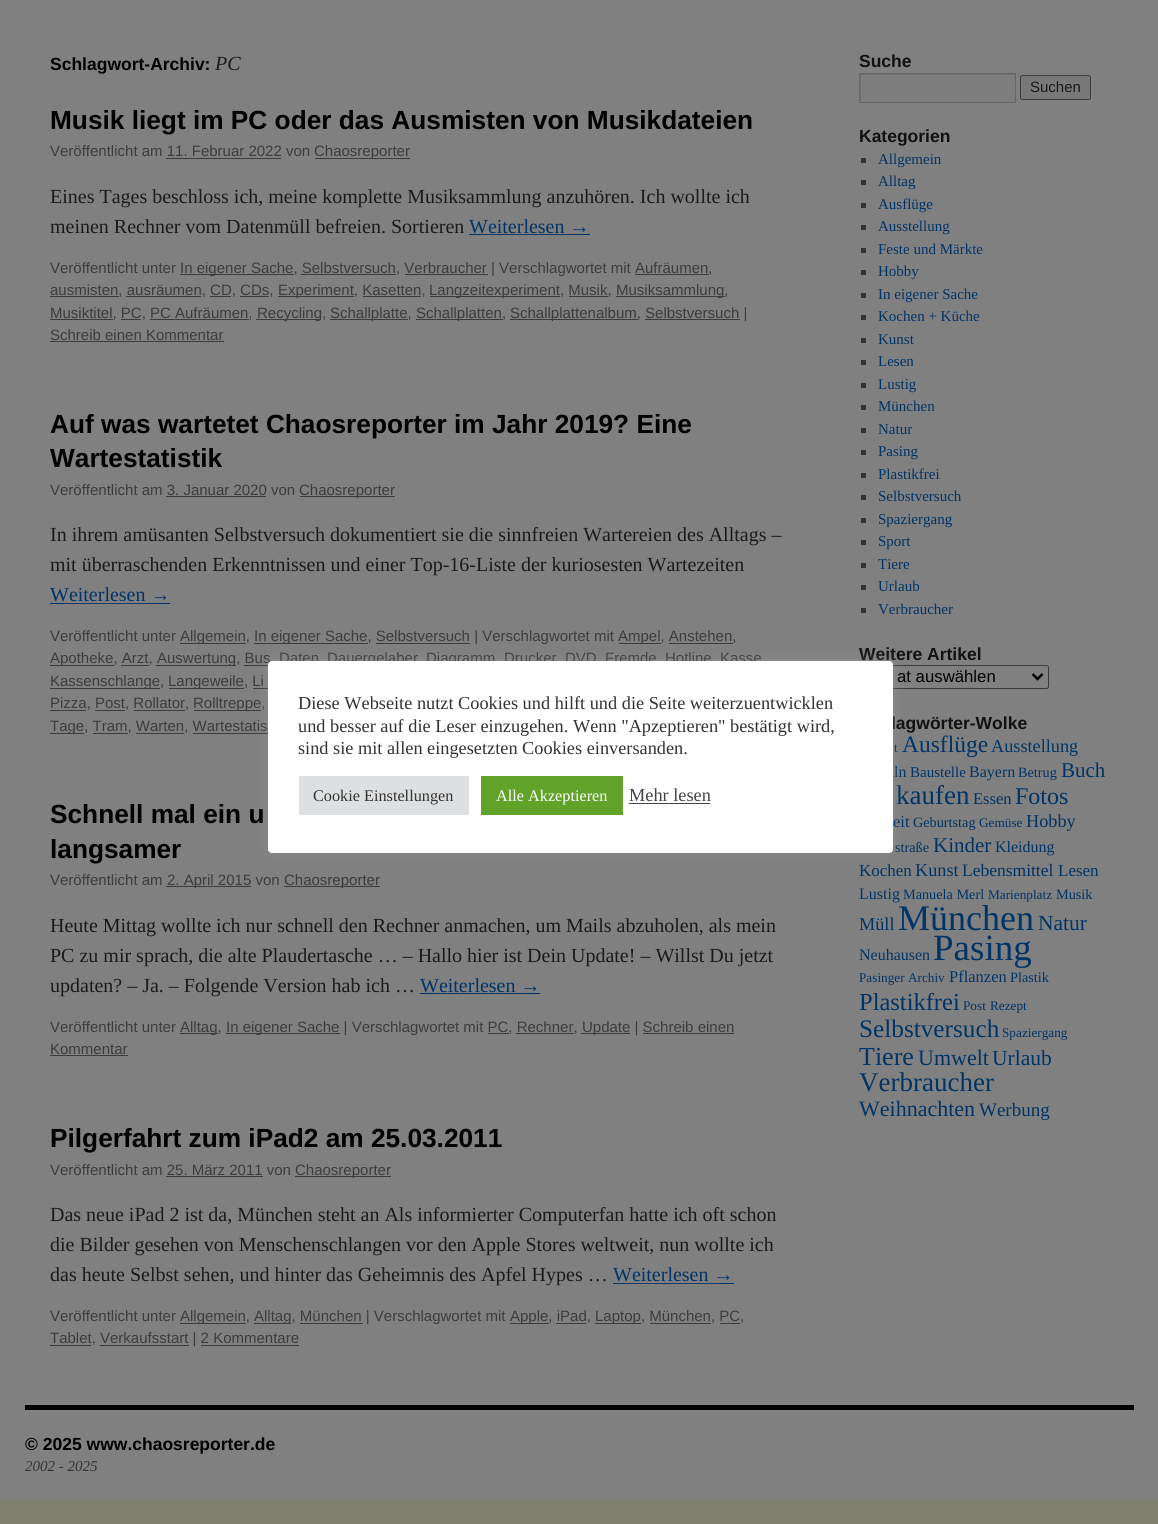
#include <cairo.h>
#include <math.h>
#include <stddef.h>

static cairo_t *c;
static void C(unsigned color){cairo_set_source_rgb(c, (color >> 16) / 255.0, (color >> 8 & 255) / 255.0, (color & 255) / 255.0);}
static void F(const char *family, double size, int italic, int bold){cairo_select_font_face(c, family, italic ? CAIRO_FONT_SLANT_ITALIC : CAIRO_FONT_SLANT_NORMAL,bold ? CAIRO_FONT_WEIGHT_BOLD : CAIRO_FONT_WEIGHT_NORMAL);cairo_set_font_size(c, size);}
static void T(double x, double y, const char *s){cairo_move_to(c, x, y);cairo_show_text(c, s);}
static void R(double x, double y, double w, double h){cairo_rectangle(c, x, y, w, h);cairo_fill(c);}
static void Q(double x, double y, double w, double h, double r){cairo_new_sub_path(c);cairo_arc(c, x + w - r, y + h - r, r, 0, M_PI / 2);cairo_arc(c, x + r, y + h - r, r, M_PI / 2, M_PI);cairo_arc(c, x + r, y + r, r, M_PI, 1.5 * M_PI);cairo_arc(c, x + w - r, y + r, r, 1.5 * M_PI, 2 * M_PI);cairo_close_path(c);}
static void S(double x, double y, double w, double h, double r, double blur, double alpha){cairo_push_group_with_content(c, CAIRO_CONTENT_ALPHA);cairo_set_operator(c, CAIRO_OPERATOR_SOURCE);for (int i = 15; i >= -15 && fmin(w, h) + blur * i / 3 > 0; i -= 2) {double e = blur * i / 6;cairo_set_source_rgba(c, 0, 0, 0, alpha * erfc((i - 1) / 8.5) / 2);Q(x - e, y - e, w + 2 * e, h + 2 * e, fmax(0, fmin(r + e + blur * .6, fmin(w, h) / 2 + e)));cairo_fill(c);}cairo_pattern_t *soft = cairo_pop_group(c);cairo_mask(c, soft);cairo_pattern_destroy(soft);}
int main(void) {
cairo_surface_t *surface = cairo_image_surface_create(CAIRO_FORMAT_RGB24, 1158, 1524);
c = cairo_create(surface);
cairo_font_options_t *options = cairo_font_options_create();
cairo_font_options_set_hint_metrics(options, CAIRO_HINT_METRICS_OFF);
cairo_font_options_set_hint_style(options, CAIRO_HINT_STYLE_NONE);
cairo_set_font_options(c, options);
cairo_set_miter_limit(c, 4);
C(0x80806f);
cairo_paint(c);
C(0x808080);
R(0,0,1158,1500);
F("Liberation Sans",17.5,0,1);
C(0x000000);
T(50,70,"Schlagwort-Archiv:");
F("Liberation Serif",20,1,0);
C(0x1a1a1a);
T(215,70,"PC");
F("Liberation Sans",26.25,0,1);
C(0x000000);
T(50,129,"Musik liegt im PC oder das Ausmisten von Musikdateien");
F("Liberation Sans",15,0,0);
C(0x3c3c3c);
T(50,156,"Veröffentlicht am 11. Februar 2022 von");
R(315,158,95,1);
T(314,156,"Chaosreporter");
R(166,158,115,1);
F("Liberation Serif",20,0,0);
C(0x1a1a1a);
T(50,203,"Eines Tages beschloss ich, meine komplette Musiksammlung anzuhören. Ich wollte ich");
T(50,233,"meinen Rechner vom Datenmüll befreien. Sortieren");
C(0x003366);
T(469,233,"Weiterlesen →");
R(469,234,121,1);
F("Liberation Sans",15,0,0);
C(0x3c3c3c);
T(50,273,"Veröffentlicht unter");
R(180,274,114,1);
T(180,273,"In eigener Sache, Selbstversuch, Verbraucher | Verschlagwortet mit Aufräumen,");
R(301,274,95,1);
R(405,274,83,1);
R(50,296,69,1);
T(50,295,"ausmisten, ausräumen, CD, CDs,");
R(126,296,75,1);
R(210,296,21,1);
R(240,296,29,1);
R(278,296,76,1);
T(278,295,"Experiment, Kasetten,");
R(363,296,58,1);
R(430,296,130,1);
T(429,295,"Langzeitexperiment, Musik,");
R(569,296,39,1);
R(616,296,109,1);
T(616,295,"Musiksammlung,");
R(635,274,74,1);
R(50,319,63,1);
T(50,318,"Musiktitel, PC, PC Aufräumen,");
R(121,319,20,1);
R(150,319,99,1);
R(256,319,65,1);
T(257,318,"Recycling,");
R(330,319,78,1);
T(330,318,"Schallplatte,");
R(416,319,87,1);
T(416,318,"Schallplatten,");
R(510,319,128,1);
T(510,318,"Schallplattenalbum, Selbstversuch |");
R(645,319,95,1);
T(50,340,"Schreib einen Kommentar");
R(50,341,174,1);
F("Liberation Sans",26.25,0,1);
C(0x000000);
T(50,433,"Auf was wartetet Chaosreporter im Jahr 2019? Eine");
T(50,467,"Wartestatistik");
F("Liberation Sans",15,0,0);
C(0x3c3c3c);
T(50,495,"Veröffentlicht am 3. Januar 2020 von");
R(300,496,95,1);
T(299,495,"Chaosreporter");
R(166,496,100,1);
F("Liberation Serif",20,0,0);
C(0x1a1a1a);
T(50,541,"In ihrem amüsanten Selbstversuch dokumentiert sie die sinnfreien Wartereien des Alltags –");
T(50,571,"mit überraschenden Erkenntnissen und einer Top-16-Liste der kuriosesten Wartezeiten");
C(0x003366);
T(50,601,"Weiterlesen →");
R(50,603,120,1);
F("Liberation Sans",15,0,0);
C(0x3c3c3c);
T(50,641,"Veröffentlicht unter");
R(180,643,66,1);
T(180,641,"Allgemein,");
R(254,643,114,1);
T(254,641,"In eigener Sache, Selbstversuch | Verschlagwortet mit");
R(376,643,94,1);
R(619,643,42,1);
T(618,641,"Ampel, Anstehen,");
R(669,643,64,1);
R(50,665,64,1);
T(50,663,"Apotheke, Arzt,");
R(121,665,28,1);
R(156,665,80,1);
T(157,663,"Auswertung, Bus");
R(244,665,26,1);
T(279,663,"Daten");
T(327,663,"Dauergelaber");
T(426,663,"Diagramm");
T(504,663,"Drucker");
T(565,663,"DVD");
T(605,663,"Fremde");
T(665,663,"Hotline");
T(720,663,"Kasse");
R(50,688,110,1);
T(50,686,"Kassenschlange,");
R(169,688,75,1);
T(168,686,"Langeweile, Li");
R(253,688,15,1);
T(50,708,"Pizza, Post, Rollator,");
R(50,710,36,1);
R(95,710,30,1);
R(134,710,51,1);
R(194,710,67,1);
T(193,708,"Rolltreppe,");
R(50,733,34,1);
T(50,731,"Tage, Tram, Warten, Wartestatis");
R(93,733,35,1);
R(136,733,48,1);
R(193,733,75,1);
F("Liberation Sans",26.25,0,1);
C(0x000000);
T(50,823,"Schnell mal ein u");
T(50,858,"langsamer");
F("Liberation Sans",15,0,0);
C(0x3c3c3c);
T(50,885,"Veröffentlicht am");
R(166,886,85,1);
T(167,885,"2. April 2015 von");
R(284,886,96,1);
T(284,885,"Chaosreporter");
F("Liberation Serif",20,0,0);
C(0x1a1a1a);
T(50,932,"Heute Mittag wollte ich nur schnell den Rechner anmachen, um Mails abzuholen, als mein");
T(50,962,"PC zu mir sprach, die alte Plaudertasche … – Hallo hier ist Dein Update! – Willst Du jetzt");
T(50,992,"updaten? – Ja. – Folgende Version hab ich …");
C(0x003366);
T(420,992,"Weiterlesen →");
R(420,993,120,1);
F("Liberation Sans",15,0,0);
C(0x3c3c3c);
T(50,1032,"Veröffentlicht unter");
R(180,1033,38,1);
T(180,1032,"Alltag,");
R(226,1033,114,1);
T(226,1032,"In eigener Sache | Verschlagwortet mit PC, Rechner,");
R(581,1033,49,1);
T(582,1032,"Update | Schreib einen");
R(488,1033,21,1);
R(516,1033,58,1);
T(50,1054,"Kommentar");
R(643,1033,91,1);
R(50,1055,78,1);
F("Liberation Sans",26.25,0,1);
C(0x000000);
T(50,1147,"Pilgerfahrt zum iPad2 am 25.03.2011");
F("Liberation Sans",15,0,0);
C(0x3c3c3c);
T(50,1175,"Veröffentlicht am 25. März 2011 von");
R(295,1176,96,1);
T(295,1175,"Chaosreporter");
R(166,1176,97,1);
F("Liberation Serif",20,0,0);
C(0x1a1a1a);
T(50,1221,"Das neue iPad 2 ist da, München steht an Als informierter Computerfan hatte ich oft schon");
T(50,1251,"die Bilder gesehen von Menschenschlangen vor den Apple Stores weltweit, nun wollte ich");
T(50,1281,"das heute Selbst sehen, und hinter das Geheimnis des Apfel Hypes …");
C(0x003366);
T(613,1281,"Weiterlesen →");
R(613,1283,121,1);
F("Liberation Sans",15,0,0);
C(0x3c3c3c);
T(50,1321,"Veröffentlicht unter");
R(180,1323,66,1);
T(180,1321,"Allgemein,");
R(254,1323,37,1);
T(254,1321,"Alltag, München | Verschlagwortet mit");
R(300,1323,63,1);
R(510,1323,39,1);
T(510,1321,"Apple, iPad,");
R(556,1323,30,1);
R(595,1323,46,1);
T(595,1321,"Laptop, München, PC,");
R(650,1323,61,1);
R(720,1323,20,1);
R(50,1345,41,1);
T(50,1343,"Tablet, Verkaufsstart | 2 Kommentare");
R(100,1345,89,1);
R(201,1345,98,1);
F("Liberation Sans",17.5,0,1);
C(0x111111);
T(859,67,"Suche");
C(0x7d7d7d);
R(860,75,155,27);
cairo_save(c);
cairo_rectangle(c,860,74,155,27);
cairo_clip(c);
C(0x707070);
cairo_set_fill_rule(c,CAIRO_FILL_RULE_EVEN_ODD);
cairo_new_path(c);
cairo_move_to(c,736,-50);
cairo_line_to(c,1139,-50);
cairo_line_to(c,1139,225);
cairo_line_to(c,736,225);
cairo_close_path(c);
cairo_move_to(c,861,75);
cairo_line_to(c,1016,75);
cairo_line_to(c,1016,102);
cairo_line_to(c,861,102);
cairo_close_path(c);
cairo_fill(c);
cairo_restore(c);
cairo_rectangle(c,859.5,73.5,156,29);
C(0x666666);
cairo_set_line_width(c,1);
cairo_stroke(c);
C(0x787878);
Q(1020.5,75.5,70,24,2);
cairo_fill_preserve(c);
C(0x3b3b3b);
cairo_stroke(c);
F("Liberation Sans",15,0,0);
C(0x1a1a1a);
T(1030,92,"Suchen");
F("Liberation Sans",17.5,0,1);
C(0x111111);
T(859,142,"Kategorien");
C(0x333333);
R(861,158,5,5);
F("Liberation Serif",15,0,0);
C(0x003366);
T(878,164,"Allgemein");
C(0x333333);
R(861,180,5,5);
C(0x003366);
T(878,186,"Alltag");
C(0x333333);
R(861,203,5,5);
C(0x003366);
T(878,209,"Ausflüge");
C(0x333333);
R(861,225,5,5);
C(0x003366);
T(878,231,"Ausstellung");
C(0x333333);
R(861,248,5,5);
C(0x003366);
T(878,254,"Feste und Märkte");
C(0x333333);
R(861,270,5,5);
C(0x003366);
T(878,276,"Hobby");
C(0x333333);
R(861,293,5,5);
C(0x003366);
T(878,299,"In eigener Sache");
C(0x333333);
R(861,315,5,5);
C(0x003366);
T(878,321,"Kochen + Küche");
C(0x333333);
R(861,338,5,5);
C(0x003366);
T(878,344,"Kunst");
C(0x333333);
R(861,360,5,5);
C(0x003366);
T(878,366,"Lesen");
C(0x333333);
R(861,383,5,5);
C(0x003366);
T(878,389,"Lustig");
C(0x333333);
R(861,405,5,5);
C(0x003366);
T(878,411,"München");
C(0x333333);
R(861,428,5,5);
C(0x003366);
T(878,434,"Natur");
C(0x333333);
R(861,450,5,5);
C(0x003366);
T(878,456,"Pasing");
C(0x333333);
R(861,473,5,5);
C(0x003366);
T(878,479,"Plastikfrei");
C(0x333333);
R(861,495,5,5);
C(0x003366);
T(878,501,"Selbstversuch");
C(0x333333);
R(861,518,5,5);
C(0x003366);
T(878,524,"Spaziergang");
C(0x333333);
R(861,540,5,5);
C(0x003366);
T(878,546,"Sport");
C(0x333333);
R(861,563,5,5);
C(0x003366);
T(878,569,"Tiere");
C(0x333333);
R(861,585,5,5);
C(0x003366);
T(878,591,"Urlaub");
C(0x333333);
R(861,608,5,5);
C(0x003366);
T(878,614,"Verbraucher");
F("Liberation Sans",17.5,0,1);
C(0x111111);
T(859,660,"Weitere Artikel");
Q(859.5,665.5,189,23,2);
C(0x3b3b3b);
cairo_stroke(c);
cairo_new_path(c);
cairo_move_to(c,1032.5,674);
cairo_line_to(c,1037.5,679);
cairo_line_to(c,1042.5,674);
C(0x000000);
cairo_set_line_width(c,2.5);
cairo_stroke(c);
F("Liberation Sans",16.75,0,0);
T(897,682,"at auswählen");
F("Liberation Sans",17.5,0,1);
C(0x111111);
T(891,729,"lagwörter-Wolke");
F("Liberation Serif",13.25,0,0);
C(0x003366);
T(894,752,"t");
F("Liberation Serif",23.5,0,0);
T(902,752,"Ausflüge");
F("Liberation Serif",18.25,0,0);
T(991,752,"Ausstellung");
F("Liberation Serif",16,0,0);
T(894,777,"ln");
F("Liberation Serif",15,0,0);
T(910,777,"Baustelle");
F("Liberation Serif",16,0,0);
T(969,777,"Bayern");
F("Liberation Serif",14.25,0,0);
T(1018,777,"Betrug");
F("Liberation Serif",21,0,0);
T(1061,777,"Buch");
F("Liberation Serif",27,0,0);
T(896,804,"kaufen");
F("Liberation Serif",16.5,0,0);
T(973,804,"Essen");
F("Liberation Serif",24,0,0);
T(1015,804,"Fotos");
F("Liberation Serif",16.5,0,0);
T(893,827,"eit");
F("Liberation Serif",14.25,0,0);
T(913,827,"Geburtstag");
F("Liberation Serif",13.25,0,0);
T(979,827,"Gemüse");
F("Liberation Serif",18.25,0,0);
T(1026,827,"Hobby");
F("Liberation Serif",14.25,0,0);
T(895,852,"straße");
F("Liberation Serif",21,0,0);
T(933,852,"Kinder");
F("Liberation Serif",16,0,0);
T(995,852,"Kleidung");
F("Liberation Serif",17,0,0);
T(859,876,"Kochen");
F("Liberation Serif",18.25,0,0);
T(915,876,"Kunst");
F("Liberation Serif",17.5,0,0);
T(962,876,"Lebensmittel");
F("Liberation Serif",17,0,0);
T(1058,876,"Lesen");
F("Liberation Serif",16,0,0);
T(859,899,"Lustig");
F("Liberation Serif",14.25,0,0);
T(903,899,"Manuela Merl");
F("Liberation Serif",13.25,0,0);
T(988,899,"Marienplatz");
F("Liberation Serif",14.25,0,0);
T(1056,899,"Musik");
F("Liberation Serif",18.25,0,0);
T(859,930,"Müll");
F("Liberation Serif",36,0,0);
T(898,930,"München");
F("Liberation Serif",21.5,0,0);
T(1038,930,"Natur");
F("Liberation Serif",16,0,0);
T(859,960,"Neuhausen");
F("Liberation Serif",37,0,0);
T(933,960,"Pasing");
F("Liberation Serif",13.25,0,0);
T(859,982,"Pasinger Archiv");
F("Liberation Serif",16.5,0,0);
T(949,982,"Pflanzen");
F("Liberation Serif",14.25,0,0);
T(1010,982,"Plastik");
F("Liberation Serif",24.5,0,0);
T(859,1010,"Plastikfrei");
F("Liberation Serif",13.25,0,0);
T(963,1010,"Post");
T(990,1010,"Rezept");
F("Liberation Serif",25.25,0,0);
T(859,1037,"Selbstversuch");
F("Liberation Serif",13.25,0,0);
T(1002,1037,"Spaziergang");
F("Liberation Serif",26,0,0);
T(859,1065,"Tiere");
F("Liberation Serif",22,0,0);
T(918,1065,"Umwelt");
F("Liberation Serif",21.5,0,0);
T(992,1065,"Urlaub");
F("Liberation Serif",27,0,0);
T(859,1091,"Verbraucher");
F("Liberation Serif",22,0,0);
T(859,1116,"Weihnachten");
F("Liberation Serif",19,0,0);
T(979,1116,"Werbung");
C(0x000000);
R(25,1405,1109,5);
F("Liberation Sans",17.5,0,1);
T(25,1450,"© 2025 www.chaosreporter.de");
F("Liberation Serif",15,1,0);
C(0x333333);
T(25,1471,"2002 - 2025");
C(0xacabab);
S(268,660,625,191,4,6,.3);
C(0xffffff);
Q(268,661,625,192,4);
cairo_fill(c);
F("Liberation Serif",18.3,0,0);
C(0x333333);
T(298,709,"Diese Webseite nutzt Cookies und hilft und die Seite weiterzuentwicklen");
T(298,732,"und besser auf die Leser einzugehen. Wenn \"Apzeptieren\" bestätigt wird,");
T(298,754,"sind sie mit allen eingesetzten Cookies einversanden.");
C(0xdedfe0);
R(299,776,170,39);
F("Liberation Serif",16.25,0,0);
C(0x333333);
T(313,801,"Cookie Einstellungen");
C(0x61a229);
R(481,776,142,39);
C(0xffffff);
T(496,801,"Alle Akzeptieren");
F("Liberation Serif",18.3,0,0);
C(0x444444);
T(629,801,"Mehr lesen");
R(629,803,81,1);
cairo_surface_write_to_png(surface, "o.png");
cairo_font_options_destroy(options);
cairo_destroy(c);
cairo_surface_destroy(surface);
return 0;
}
